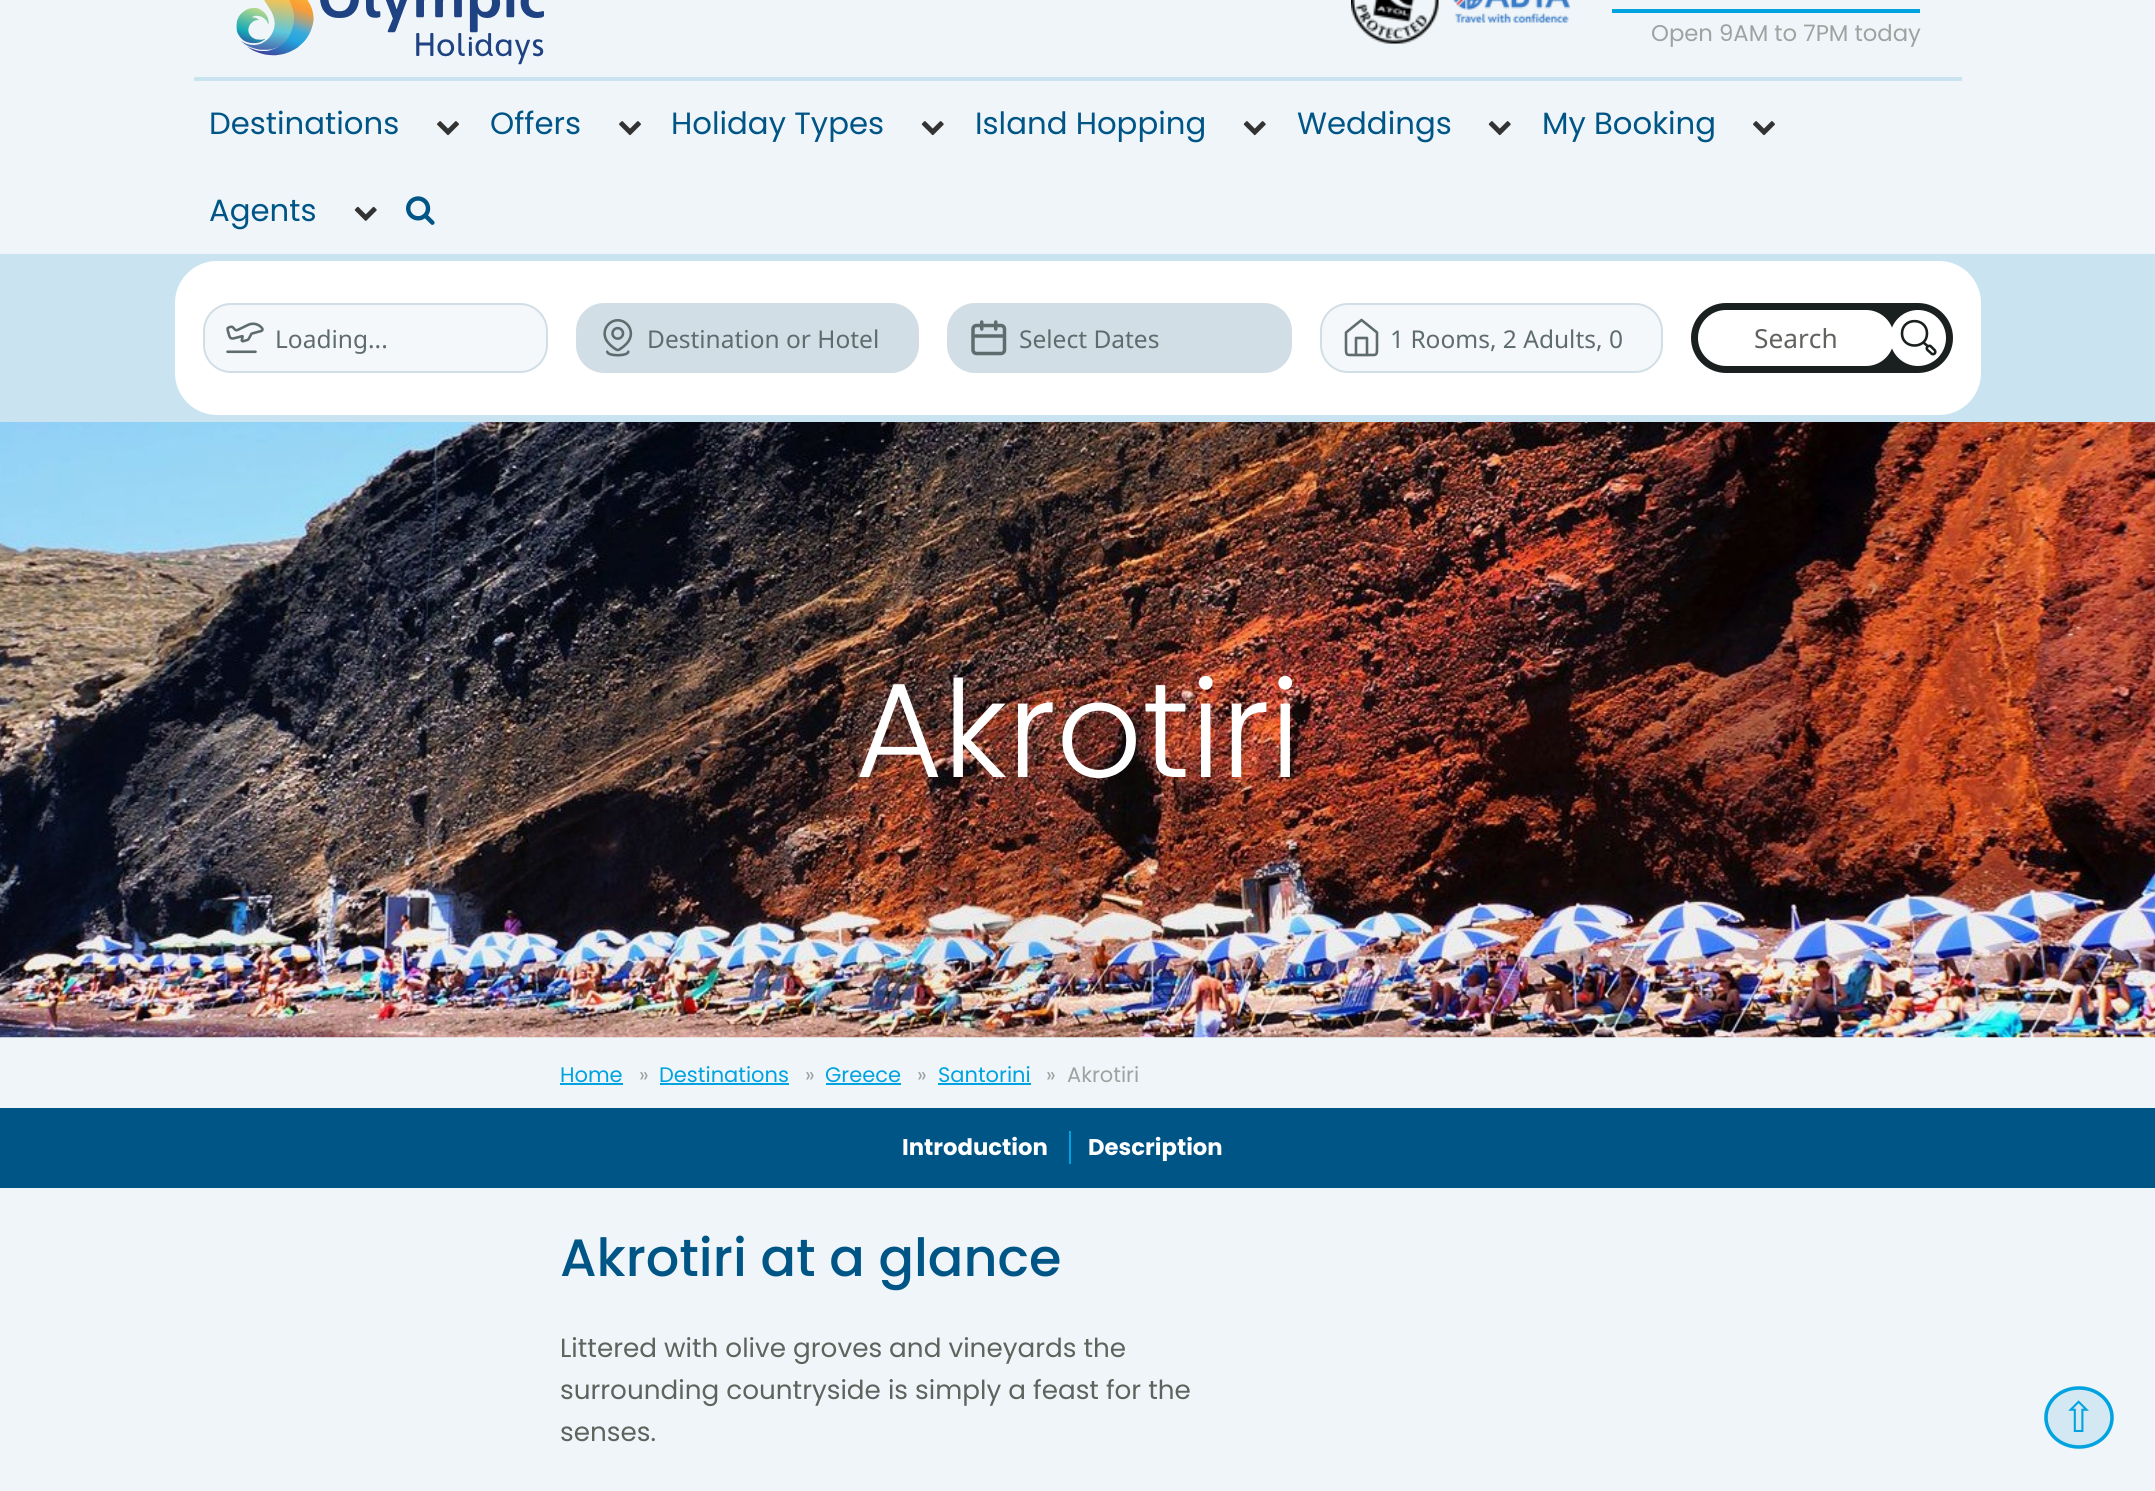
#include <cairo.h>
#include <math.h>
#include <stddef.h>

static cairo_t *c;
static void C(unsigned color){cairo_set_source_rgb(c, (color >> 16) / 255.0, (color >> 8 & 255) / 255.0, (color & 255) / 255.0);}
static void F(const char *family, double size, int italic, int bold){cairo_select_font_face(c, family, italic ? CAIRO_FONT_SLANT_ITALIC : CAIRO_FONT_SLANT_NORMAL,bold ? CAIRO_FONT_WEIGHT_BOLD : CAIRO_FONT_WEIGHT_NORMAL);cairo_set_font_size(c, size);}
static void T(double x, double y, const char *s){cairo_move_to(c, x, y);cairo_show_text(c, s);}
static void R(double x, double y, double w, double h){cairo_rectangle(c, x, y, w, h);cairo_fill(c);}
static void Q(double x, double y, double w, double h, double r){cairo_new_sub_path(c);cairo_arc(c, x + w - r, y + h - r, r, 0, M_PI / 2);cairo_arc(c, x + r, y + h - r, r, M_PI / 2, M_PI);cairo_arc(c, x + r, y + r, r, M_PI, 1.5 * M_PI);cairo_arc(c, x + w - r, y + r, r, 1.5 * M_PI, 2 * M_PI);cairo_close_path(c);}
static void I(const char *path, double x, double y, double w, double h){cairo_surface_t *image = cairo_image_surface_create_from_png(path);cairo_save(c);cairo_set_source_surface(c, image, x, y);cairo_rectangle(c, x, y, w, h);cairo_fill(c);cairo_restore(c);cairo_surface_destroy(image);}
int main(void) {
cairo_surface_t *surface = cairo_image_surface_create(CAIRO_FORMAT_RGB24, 2155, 1491);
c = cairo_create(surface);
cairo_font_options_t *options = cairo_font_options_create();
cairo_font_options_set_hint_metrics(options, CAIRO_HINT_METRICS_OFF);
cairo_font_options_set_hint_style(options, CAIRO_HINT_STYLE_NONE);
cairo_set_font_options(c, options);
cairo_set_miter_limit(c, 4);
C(0xeff5f8);
cairo_paint(c);
I("1.png",236,0,308,65);
I("2.png",1351,0,88,44);
I("3.png",1453,0,117,23);
C(0x00a3e0);
R(1612,9,308,4);
F("Poppins",22.75,0,0);
C(0x9fa2a1);
T(1651,41,"Open 9AM to 7PM today");
C(0xc9e4f0);
R(194,77,1768,4);
F("Poppins",30.75,0,0);
C(0x005587);
T(209,134,"Destinations");
I("4.png",437,121,22,15);
T(490,134,"Offers");
I("4.png",619,121,22,15);
T(671,134,"Holiday Types");
I("5.png",921,121,23,15);
T(975,134,"Island Hopping");
I("5.png",1243,121,23,15);
T(1297,134,"Weddings");
I("5.png",1488,121,23,15);
T(1542,134,"My Booking");
I("4.png",1753,121,22,15);
T(209,221,"Agents");
I("6.png",354,206,23,15);
I("7.png",406,196,29,29);
C(0xc9e4f0);
R(0,254,2155,168);
C(0xffffff);
Q(175,261,1806,154,42);
cairo_fill(c);
C(0xf5f8fb);
Q(204,304,343,68,27);
cairo_fill_preserve(c);
C(0xd2dee5);
cairo_stroke(c);
I("8.png",226,322,38,32);
F("Noto Sans",24.5,0,0);
C(0x5f6c6e);
T(275,348,"Loading...");
C(0xd2dee5);
Q(577,304,341,68,27);
cairo_fill_preserve(c);
cairo_stroke(c);
I("9.png",603,319,30,38);
C(0x5f6c6e);
T(647,348,"Destination or Hotel");
C(0xd2dee5);
Q(948,304,343,68,27);
cairo_fill_preserve(c);
cairo_stroke(c);
I("10.png",971,320,36,36);
C(0x5f6c6e);
T(1019,348,"Select Dates");
C(0xf5f8fb);
Q(1321,304,341,68,27);
cairo_fill_preserve(c);
C(0xd2dee5);
cairo_stroke(c);
cairo_new_path(c);
cairo_move_to(c,1346,332.5);
cairo_line_to(c,1361.5,320);
cairo_line_to(c,1377,332.5);
cairo_line_to(c,1377,348.5);
cairo_curve_to(c,1377,355.5,1376.5,355,1369.5,355);
cairo_line_to(c,1353.5,355);
cairo_curve_to(c,1346.5,355,1346,355.5,1346,348.5);
cairo_close_path(c);
cairo_move_to(c,1356,355);
cairo_line_to(c,1356,338);
cairo_line_to(c,1367,338);
cairo_line_to(c,1367,355);
C(0x5f6c6e);
cairo_set_line_width(c,2.6);
cairo_set_line_cap(c,CAIRO_LINE_CAP_ROUND);
cairo_set_line_join(c,CAIRO_LINE_JOIN_ROUND);
cairo_stroke(c);
T(1390,348,"1 Rooms, 2 Adults, 0");
C(0x1a1f1f);
Q(1691,303,262,70,35);
cairo_fill(c);
C(0xffffff);
Q(1698,310,196,56,28);
cairo_fill(c);
F("Noto Sans",26.25,0,0);
C(0x5f625d);
T(1754,348,"Search");
C(0xffffff);
cairo_new_path(c);
cairo_arc(c,1918,338,28,0,2 * M_PI);
cairo_fill(c);
cairo_new_path(c);
cairo_move_to(c,1924,343);
cairo_line_to(c,1927,345.5);
cairo_move_to(c,1927.5,350);
cairo_curve_to(c,1925.5,348,1928,345,1930.5,346);
cairo_line_to(c,1934.5,350);
cairo_curve_to(c,1936.5,352,1934.5,355,1932,354);
cairo_close_path(c);
cairo_move_to(c,1927,333.5);
cairo_curve_to(c,1927,317,1902,317,1902,333.5);
cairo_curve_to(c,1902,349.5,1927,349.5,1927,333.5);
cairo_close_path(c);
C(0x1a1f1f);
cairo_stroke(c);
I("11.png",0,422,2155,616);
F("Poppins Light",134.5,0,0);
C(0xffffff);
T(855,777,"Akrotiri");
F("Poppins",21,0,0);
C(0x00a3e0);
T(560,1082,"Home");
R(560,1083,63,2);
C(0x9fa2a1);
T(639,1082,"»");
C(0x00a3e0);
T(659,1082,"Destinations");
R(660,1083,129,2);
C(0x9fa2a1);
T(805,1082,"»");
C(0x00a3e0);
T(825,1082,"Greece");
R(826,1083,75,2);
C(0x9fa2a1);
T(917,1082,"»");
C(0x00a3e0);
T(938,1082,"Santorini");
R(938,1083,93,2);
C(0x9fa2a1);
T(1046,1082,"»");
T(1067,1082,"Akrotiri");
C(0x005587);
R(0,1108,2155,80);
F("Poppins",22.75,0,1);
C(0xffffff);
T(902,1155,"Introduction");
C(0x00a3e0);
R(1069,1131,2,33);
C(0xffffff);
T(1088,1155,"Description");
F("Poppins Medium",52.5,0,0);
C(0x005587);
T(560,1276,"Akrotiri at a glance");
F("Poppins",26.25,0,0);
C(0x5f625d);
T(560,1357,"Littered with olive groves and vineyards the");
T(560,1399,"surrounding countryside is simply a feast for the");
T(560,1441,"senses.");
C(0xd3e8f2);
cairo_new_path(c);
cairo_move_to(c,2079,1386);
cairo_curve_to(c,2098.5,1386,2114,1400,2114,1417.5);
cairo_curve_to(c,2114,1435,2098.5,1449,2079,1449);
cairo_curve_to(c,2059.5,1449,2044,1435,2044,1417.5);
cairo_curve_to(c,2044,1400,2059.5,1386,2079,1386);
cairo_close_path(c);
cairo_fill(c);
cairo_new_path(c);
cairo_move_to(c,2079,1388);
cairo_curve_to(c,2097.5,1388,2112,1401,2112,1417.5);
cairo_curve_to(c,2112,1434,2097.5,1447,2079,1447);
cairo_curve_to(c,2060.5,1447,2046,1434,2046,1417.5);
cairo_curve_to(c,2046,1401,2060.5,1388,2079,1388);
cairo_close_path(c);
C(0x00a3e0);
cairo_set_line_width(c,3.5);
cairo_set_line_cap(c,CAIRO_LINE_CAP_BUTT);
cairo_set_line_join(c,CAIRO_LINE_JOIN_MITER);
cairo_stroke(c);
F("DejaVu Sans",42,0,0);
T(2061,1432,"⇧");
cairo_surface_write_to_png(surface, "o.png");
cairo_font_options_destroy(options);
cairo_destroy(c);
cairo_surface_destroy(surface);
return 0;
}
